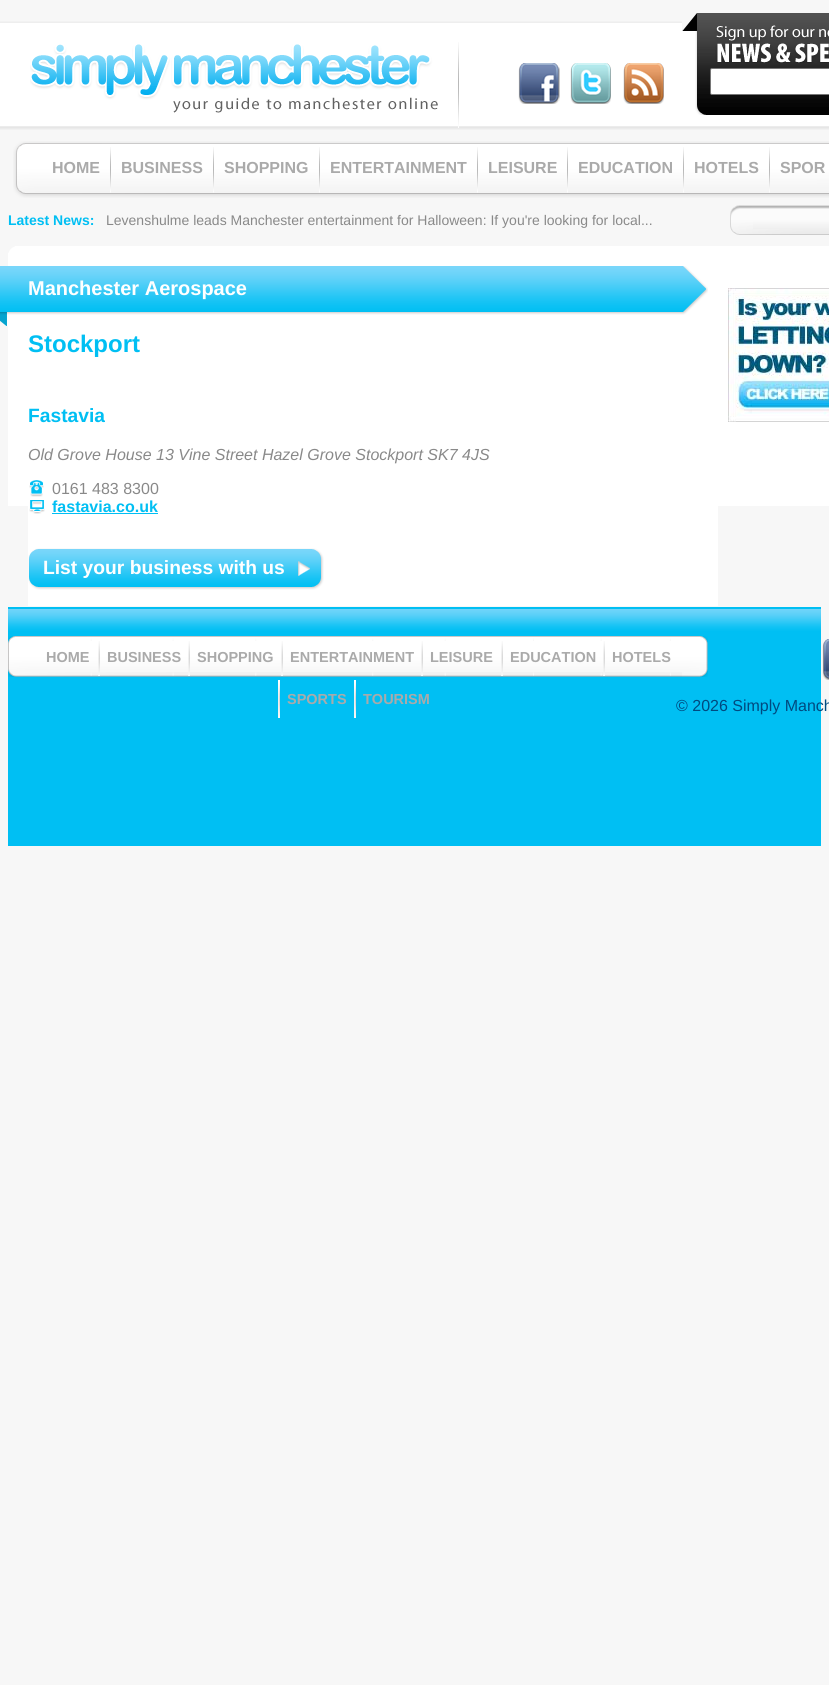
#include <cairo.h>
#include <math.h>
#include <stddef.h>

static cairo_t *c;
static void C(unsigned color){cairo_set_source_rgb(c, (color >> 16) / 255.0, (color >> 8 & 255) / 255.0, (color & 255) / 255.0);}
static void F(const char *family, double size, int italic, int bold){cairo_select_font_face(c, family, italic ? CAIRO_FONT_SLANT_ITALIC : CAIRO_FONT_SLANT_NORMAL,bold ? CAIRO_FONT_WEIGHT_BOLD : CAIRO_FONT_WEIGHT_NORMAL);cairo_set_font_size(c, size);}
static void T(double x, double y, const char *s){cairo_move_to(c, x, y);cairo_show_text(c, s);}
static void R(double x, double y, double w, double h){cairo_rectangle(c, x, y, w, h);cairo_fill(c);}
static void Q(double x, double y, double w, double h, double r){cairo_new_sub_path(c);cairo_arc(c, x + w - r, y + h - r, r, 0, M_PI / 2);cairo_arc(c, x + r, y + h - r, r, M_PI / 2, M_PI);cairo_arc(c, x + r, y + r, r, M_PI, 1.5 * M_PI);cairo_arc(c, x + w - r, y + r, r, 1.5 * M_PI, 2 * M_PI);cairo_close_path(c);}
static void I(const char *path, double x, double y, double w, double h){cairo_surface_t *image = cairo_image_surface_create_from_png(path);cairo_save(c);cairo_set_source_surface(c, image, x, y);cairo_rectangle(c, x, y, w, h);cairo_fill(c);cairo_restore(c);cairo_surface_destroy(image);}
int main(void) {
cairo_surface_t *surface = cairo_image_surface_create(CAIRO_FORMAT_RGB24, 829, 1685);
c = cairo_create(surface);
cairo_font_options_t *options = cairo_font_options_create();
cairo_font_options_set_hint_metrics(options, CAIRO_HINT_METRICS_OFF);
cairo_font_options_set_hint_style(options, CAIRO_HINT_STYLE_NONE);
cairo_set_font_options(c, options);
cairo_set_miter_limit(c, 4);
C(0xf7f7f7);
cairo_paint(c);
I("1.png",0,21,829,109);
I("2.png",458,42,1,86);
I("3.png",30,44,408,69);
I("4.png",682,13,147,102);
C(0xffffff);
Q(710.5,68.5,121,26,1.5);
cairo_fill_preserve(c);
C(0x767676);
cairo_set_line_width(c,1);
cairo_stroke(c);
I("5.png",518,63,42,41);
I("6.png",570,63,41,41);
I("7.png",623,63,41,41);
I("8.png",13,141,816,57);
F("Liberation Sans",16,0,1);
C(0xaaaaaa);
T(52,173,"HOME");
I("9.png",110,147,1,46);
T(121,173,"BUSINESS");
I("9.png",213,147,1,46);
T(224,173,"SHOPPING");
I("9.png",319,147,1,46);
T(330,173,"ENTERTAINMENT");
I("9.png",477,147,1,46);
T(488,173,"LEISURE");
I("9.png",567,147,1,46);
T(578,173,"EDUCATION");
I("9.png",683,147,1,46);
T(694,173,"HOTELS");
I("9.png",769,147,1,46);
T(780,173,"SPOR");
F("Liberation Sans",14,0,1);
C(0x00bff3);
T(8,225,"Latest News:");
F("Liberation Sans",14,0,0);
C(0x898989);
T(106,225,"Levenshulme leads Manchester entertainment for Halloween: If you're looking for local...");
I("10.png",730,205,99,30);
C(0xffffff);
R(8,246,821,260);
I("11.png",8,246,7,7);
R(28,506,690,100);
I("12.png",0,266,708,60);
F("Liberation Sans",20,0,1);
T(28,295,"Manchester Aerospace");
F("Liberation Sans",24,0,1);
C(0x00bff3);
T(28,352,"Stockport");
F("Liberation Sans",19.25,0,1);
T(28,422,"Fastavia");
F("Liberation Sans",16,1,0);
C(0x898989);
T(28,460,"Old Grove House 13 Vine Street Hazel Grove Stockport SK7 4JS");
I("13.png",29,480,15,17);
F("Liberation Sans",16,0,0);
T(52,494,"0161 483 8300");
I("14.png",29,500,16,14);
F("Liberation Sans",16,0,1);
C(0x00bff3);
T(52,512,"fastavia.co.uk");
R(52,513,106,1);
I("15.png",28,548,15,42);
I("16.png",43,548,281,42);
F("Liberation Sans",19.25,0,1);
C(0xffffff);
T(43,574,"List your business with us");
I("17.png",728,288,101,134);
I("18.png",8,607,813,239);
I("19.png",8,636,700,41);
F("Liberation Sans",14.5,0,1);
C(0xaaaaaa);
T(46,662,"HOME");
I("20.png",98,641,2,35);
T(107,662,"BUSINESS");
I("20.png",188,641,2,35);
T(197,662,"SHOPPING");
I("20.png",281,641,2,35);
T(290,662,"ENTERTAINMENT");
I("20.png",421,641,2,35);
T(430,662,"LEISURE");
I("20.png",501,641,2,35);
T(510,662,"EDUCATION");
I("20.png",603,641,2,35);
T(612,662,"HOTELS");
I("21.png",278,680,2,38);
T(287,704,"SPORTS");
I("21.png",354,680,2,38);
T(363,704,"TOURISM");
I("22.png",822,639,7,41);
F("Liberation Sans",16,0,0);
C(0x004a80);
T(676,711,"© 2026 Simply Manch");
cairo_surface_write_to_png(surface, "o.png");
cairo_font_options_destroy(options);
cairo_destroy(c);
cairo_surface_destroy(surface);
return 0;
}
